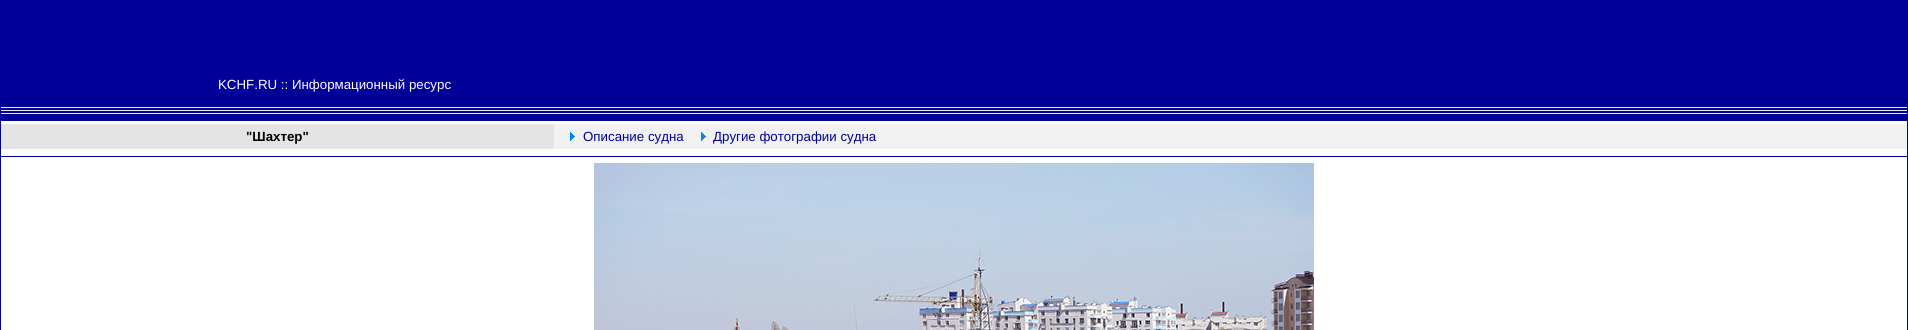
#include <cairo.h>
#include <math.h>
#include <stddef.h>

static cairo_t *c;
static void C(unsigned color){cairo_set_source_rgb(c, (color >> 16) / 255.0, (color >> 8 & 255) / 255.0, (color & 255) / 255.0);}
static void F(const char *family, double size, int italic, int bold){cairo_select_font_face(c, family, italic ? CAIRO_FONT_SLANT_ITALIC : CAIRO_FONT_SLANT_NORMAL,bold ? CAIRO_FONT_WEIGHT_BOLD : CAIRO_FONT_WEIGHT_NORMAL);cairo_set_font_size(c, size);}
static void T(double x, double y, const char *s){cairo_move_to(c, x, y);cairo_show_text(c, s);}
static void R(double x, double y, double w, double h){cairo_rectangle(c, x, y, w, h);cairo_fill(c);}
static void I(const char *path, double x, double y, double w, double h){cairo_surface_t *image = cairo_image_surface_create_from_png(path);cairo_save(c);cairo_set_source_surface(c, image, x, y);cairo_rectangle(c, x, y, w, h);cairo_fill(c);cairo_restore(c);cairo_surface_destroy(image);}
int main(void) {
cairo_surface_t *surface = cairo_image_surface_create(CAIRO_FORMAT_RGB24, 1908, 330);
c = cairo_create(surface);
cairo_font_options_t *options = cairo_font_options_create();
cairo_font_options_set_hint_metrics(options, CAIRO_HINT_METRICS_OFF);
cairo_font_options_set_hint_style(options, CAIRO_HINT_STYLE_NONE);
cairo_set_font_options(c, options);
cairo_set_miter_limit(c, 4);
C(0x000099);
cairo_paint(c);
C(0xffffff);
R(1,121,1906,209);
F("Liberation Sans",13.3,0,0);
T(218,89,"KCHF.RU :: Информационный ресурс");
I("1.png",1,107,1906,7);
C(0xe4e4e4);
R(1,124,553,25);
F("Liberation Sans",13.3,0,1);
C(0x000000);
T(246,141,"\"Шахтер\"");
C(0xf1f1f1);
R(554,124,1353,25);
I("2.png",570,132,5,9);
F("Liberation Sans",13.3,0,0);
C(0x000099);
T(583,141,"Описание судна");
I("2.png",701,132,5,9);
T(713,141,"Другие фотографии судна");
R(1,156,1906,1);
I("3.png",594,163,720,167);
cairo_surface_write_to_png(surface, "o.png");
cairo_font_options_destroy(options);
cairo_destroy(c);
cairo_surface_destroy(surface);
return 0;
}
